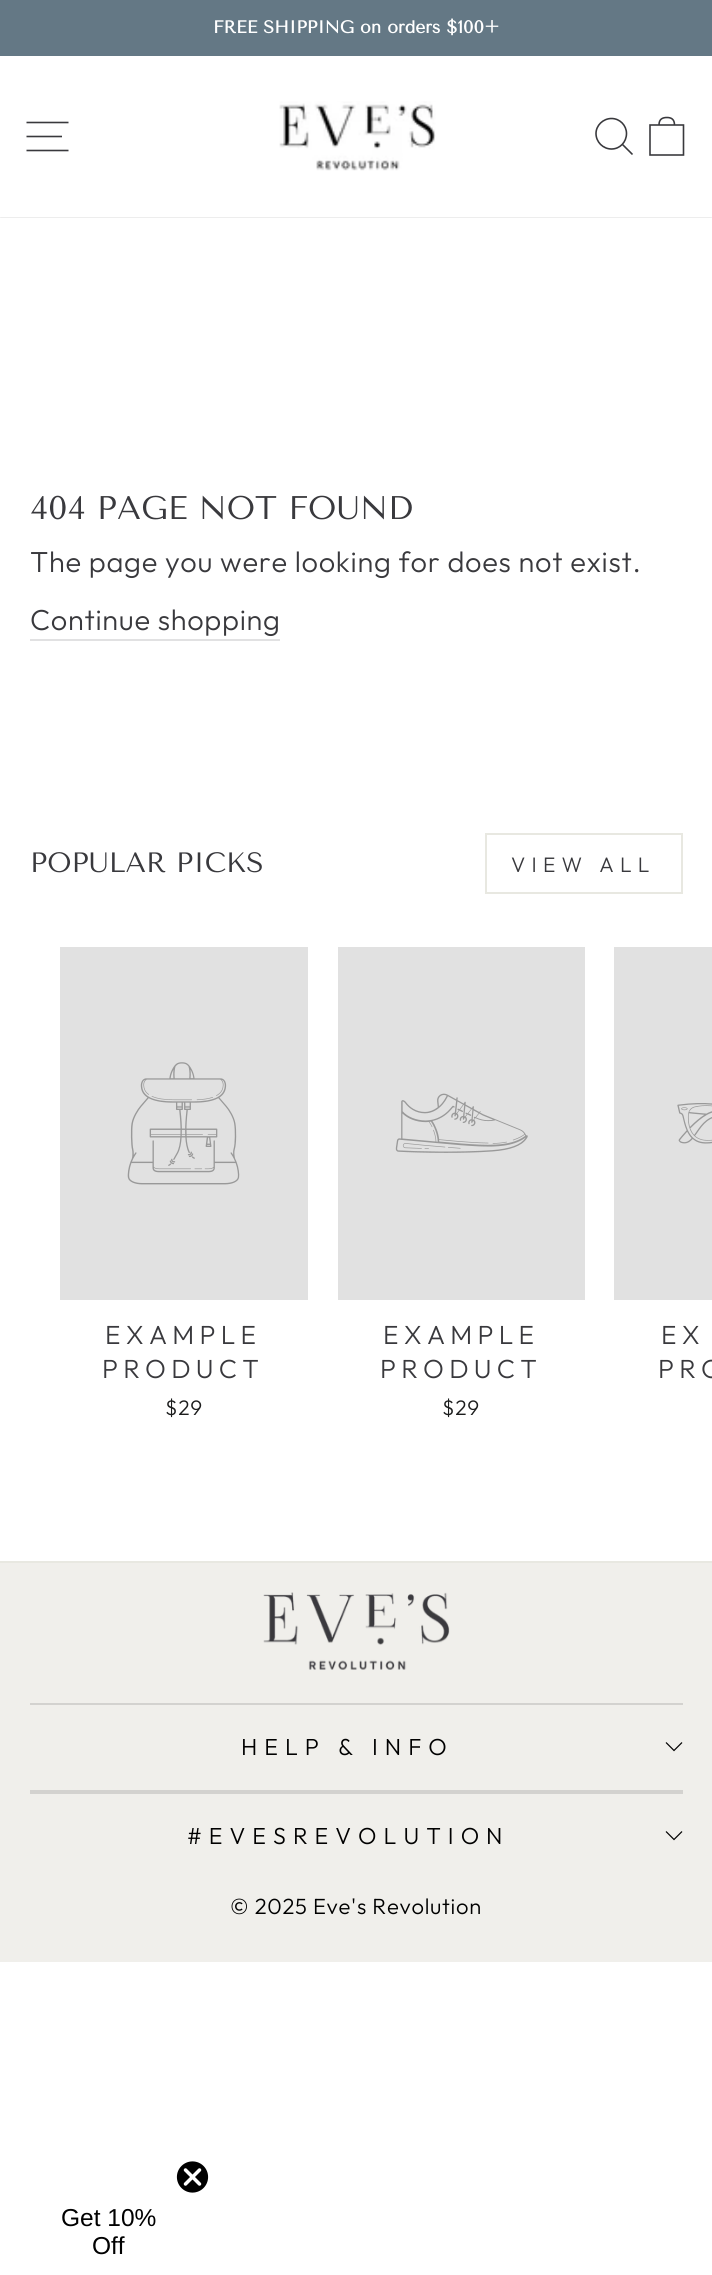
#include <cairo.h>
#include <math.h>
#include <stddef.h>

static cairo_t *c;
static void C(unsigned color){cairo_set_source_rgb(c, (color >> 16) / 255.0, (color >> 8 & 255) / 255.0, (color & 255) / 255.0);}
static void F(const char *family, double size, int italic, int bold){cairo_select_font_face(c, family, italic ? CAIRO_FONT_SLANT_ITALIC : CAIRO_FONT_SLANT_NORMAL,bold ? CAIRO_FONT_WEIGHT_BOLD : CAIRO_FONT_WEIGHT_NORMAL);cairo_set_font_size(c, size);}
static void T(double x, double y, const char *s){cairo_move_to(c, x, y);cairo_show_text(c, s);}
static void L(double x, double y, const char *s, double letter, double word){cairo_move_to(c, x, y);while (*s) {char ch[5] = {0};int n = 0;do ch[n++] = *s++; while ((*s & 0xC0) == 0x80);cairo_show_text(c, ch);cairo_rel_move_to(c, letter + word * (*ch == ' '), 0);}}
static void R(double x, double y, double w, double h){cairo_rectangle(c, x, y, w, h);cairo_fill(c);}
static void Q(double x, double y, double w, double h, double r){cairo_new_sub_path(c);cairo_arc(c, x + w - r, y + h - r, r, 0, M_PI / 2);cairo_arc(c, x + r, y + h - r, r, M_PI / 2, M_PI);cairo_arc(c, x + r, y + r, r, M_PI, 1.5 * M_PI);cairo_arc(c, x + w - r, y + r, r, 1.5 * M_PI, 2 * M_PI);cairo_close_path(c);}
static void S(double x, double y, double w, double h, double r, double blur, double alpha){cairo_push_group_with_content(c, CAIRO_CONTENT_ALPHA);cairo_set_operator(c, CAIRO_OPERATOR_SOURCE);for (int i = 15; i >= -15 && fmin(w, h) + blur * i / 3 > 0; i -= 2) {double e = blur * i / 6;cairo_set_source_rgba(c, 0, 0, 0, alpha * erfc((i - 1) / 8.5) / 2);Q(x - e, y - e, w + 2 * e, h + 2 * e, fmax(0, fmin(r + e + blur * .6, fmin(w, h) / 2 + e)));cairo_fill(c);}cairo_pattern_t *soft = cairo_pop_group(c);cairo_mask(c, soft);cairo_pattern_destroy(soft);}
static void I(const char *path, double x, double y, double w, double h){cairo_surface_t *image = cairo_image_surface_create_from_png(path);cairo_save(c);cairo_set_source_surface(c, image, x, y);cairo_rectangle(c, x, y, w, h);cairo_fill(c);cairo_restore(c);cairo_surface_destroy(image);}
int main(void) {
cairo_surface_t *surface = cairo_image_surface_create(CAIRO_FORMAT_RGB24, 712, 2275);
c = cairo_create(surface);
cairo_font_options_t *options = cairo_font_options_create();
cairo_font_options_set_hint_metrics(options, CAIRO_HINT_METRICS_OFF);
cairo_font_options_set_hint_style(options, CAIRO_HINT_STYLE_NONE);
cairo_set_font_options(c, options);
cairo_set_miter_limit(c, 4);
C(0xffffff);
cairo_paint(c);
cairo_save(c);
cairo_rectangle(c,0,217,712,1);
cairo_clip(c);
C(0x000000);
S(0,56,712,161,0,1,.2);
cairo_restore(c);
C(0x647885);
R(0,0,712,56);
F("Tenor Sans",17.5,0,1);
C(0xffffff);
T(213,33,"FREE SHIPPING on orders $100+");
cairo_new_path(c);
cairo_move_to(c,26.5,122.5);
cairo_line_to(c,68.5,122.5);
cairo_move_to(c,26.5,136.5);
cairo_line_to(c,62,136.5);
cairo_move_to(c,26.5,150.5);
cairo_line_to(c,68.5,150.5);
C(0x39393d);
cairo_set_line_width(c,1.6);
cairo_stroke(c);
I("1.png",279,101,157,70);
cairo_new_path(c);
cairo_move_to(c,626.5,133.5);
cairo_curve_to(c,626.5,142,620,149,611.5,149);
cairo_curve_to(c,603,149,596,142,596,133.5);
cairo_curve_to(c,596,125.5,603,118.5,611.5,118.5);
cairo_curve_to(c,620,118.5,626.5,125.5,626.5,133.5);
cairo_close_path(c);
cairo_move_to(c,632.5,154.5);
cairo_line_to(c,622.5,144.5);
cairo_stroke(c);
cairo_new_path(c);
cairo_move_to(c,650,125);
cairo_line_to(c,683.5,125);
cairo_line_to(c,683.5,155);
cairo_line_to(c,650,155);
cairo_close_path(c);
cairo_move_to(c,659,125);
cairo_curve_to(c,659,119,662.5,117.5,667,117.5);
cairo_curve_to(c,671,117.5,674.5,119,674.5,125);
cairo_stroke(c);
F("Tenor Sans",32.75,0,0);
T(30,519,"404 PAGE NOT FOUND");
F("Outfit Light",29,0,0);
L(30,572,"The page you were looking for does not exist.",.7,0);
C(0xe1e1e2);
R(30,639,250,2);
C(0x39393d);
L(30,630,"Continue shopping",.7,0);
F("Tenor Sans",28,0,0);
T(30,872,"POPULAR PICKS");
cairo_rectangle(c,486,834,196,59);
C(0xe8e8e1);
cairo_set_line_width(c,2);
cairo_stroke(c);
F("Outfit Light",21,0,0);
C(0x39393d);
L(511,872,"VIEW ALL",6.25,0);
C(0xe1e1e1);
R(60,947,248,353);
I("2.png",127,1062,113,123);
F("Outfit Light",26.25,0,0);
C(0x39393d);
L(105,1344,"EXAMPLE",5.25,0);
L(102,1378,"PRODUCT",5.25,0);
F("Outfit Light",21,0,0);
C(0x1c1d1d);
L(165,1415,"$29",.7,0);
C(0xe1e1e1);
R(338,947,247,353);
I("3.png",395,1093,133,60);
F("Outfit Light",26.25,0,0);
C(0x39393d);
L(383,1344,"EXAMPLE",5.25,0);
L(380,1378,"PRODUCT",5.25,0);
F("Outfit Light",21,0,0);
C(0x1c1d1d);
L(442,1415,"$29",.7,0);
C(0xe1e1e1);
R(614,947,98,353);
I("4.png",677,1103,35,41);
F("Outfit Light",26.25,0,0);
C(0x39393d);
L(661,1344,"EX",5.25,0);
L(658,1378,"PRO",5.25,0);
C(0xf0efeb);
R(0,1563,712,399);
C(0xe8e8e1);
R(0,1561,712,2);
I("5.png",263,1592,187,78);
C(0xd3d2cf);
R(30,1703,653,2);
F("Outfit Light",23.25,0,0);
C(0x000000);
L(241,1755,"HELP & INFO",7,0);
cairo_new_path(c);
cairo_move_to(c,666,1742.5);
cairo_line_to(c,674,1750.5);
cairo_line_to(c,682,1742.5);
cairo_set_line_width(c,1.2);
cairo_stroke(c);
C(0xd3d2cf);
R(30,1790,653,4);
C(0x000000);
L(187,1844,"#EVESREVOLUTION",7,0);
cairo_new_path(c);
cairo_move_to(c,666,1831.5);
cairo_line_to(c,674,1839.5);
cairo_line_to(c,682,1831.5);
cairo_stroke(c);
F("Outfit Light",22,0,0);
L(230,1914,"© 2025 Eve's Revolution",.7,0);
cairo_new_path(c);
cairo_arc(c,192.5,2177,16.5,0,2 * M_PI);
cairo_fill(c);
cairo_save(c);
cairo_rectangle(c,175,2160,35,35);
cairo_clip(c);
cairo_arc(c,192.5,2177,16.5,0,2 * M_PI);
C(0xffffff);
cairo_set_line_width(c,1.8);
cairo_stroke(c);
cairo_restore(c);
cairo_new_path(c);
cairo_move_to(c,185.5,2170);
cairo_line_to(c,199.5,2184);
cairo_move_to(c,185.5,2184);
cairo_line_to(c,199.5,2170);
cairo_close_path(c);
C(0xffffff);
cairo_set_line_width(c,3.5);
cairo_set_line_cap(c,CAIRO_LINE_CAP_ROUND);
cairo_set_line_join(c,CAIRO_LINE_JOIN_ROUND);
cairo_stroke(c);
F("Liberation Sans",24.5,0,0);
C(0x000000);
T(61,2226,"Get 10%");
T(92,2254,"Off");
cairo_surface_write_to_png(surface, "o.png");
cairo_font_options_destroy(options);
cairo_destroy(c);
cairo_surface_destroy(surface);
return 0;
}
